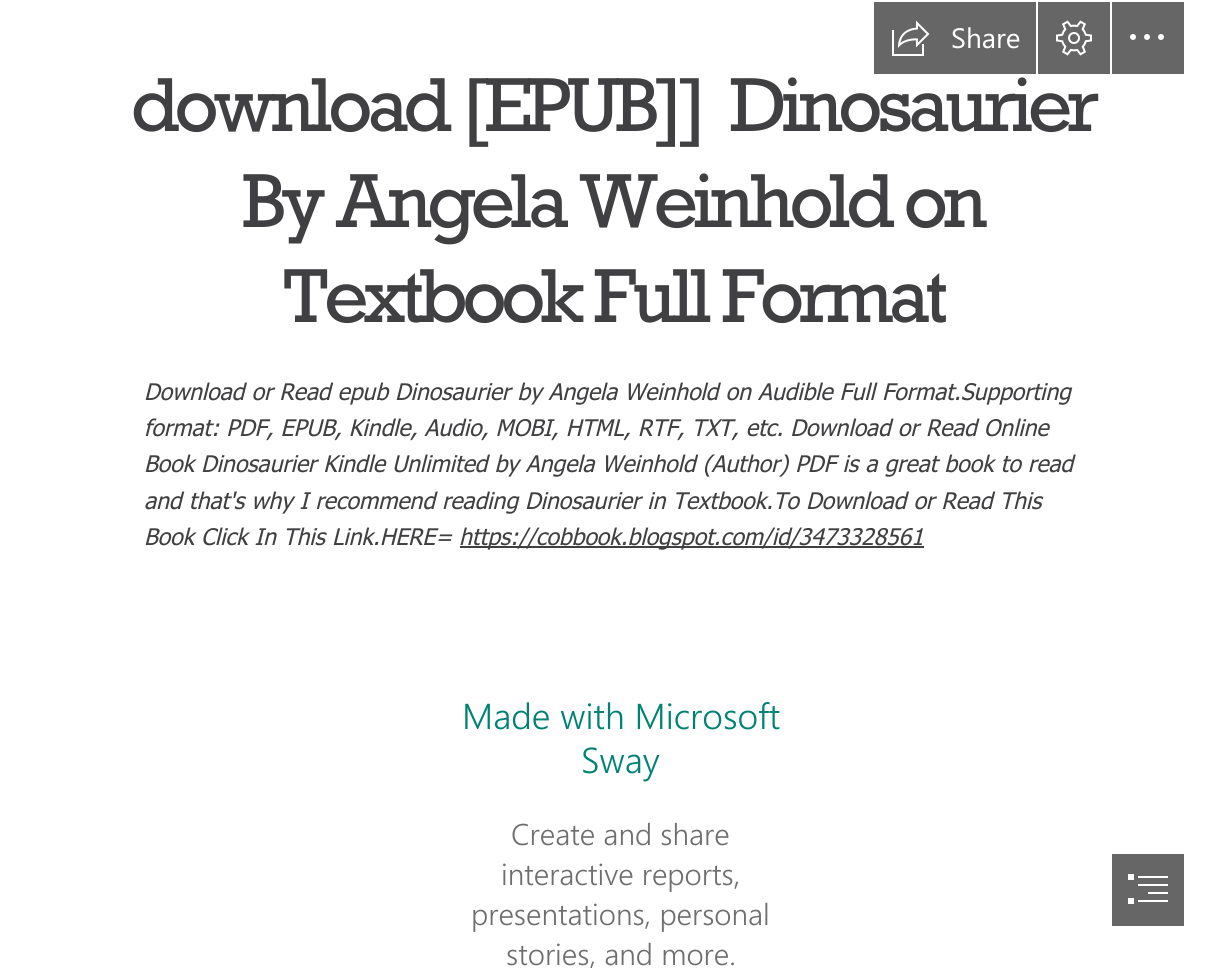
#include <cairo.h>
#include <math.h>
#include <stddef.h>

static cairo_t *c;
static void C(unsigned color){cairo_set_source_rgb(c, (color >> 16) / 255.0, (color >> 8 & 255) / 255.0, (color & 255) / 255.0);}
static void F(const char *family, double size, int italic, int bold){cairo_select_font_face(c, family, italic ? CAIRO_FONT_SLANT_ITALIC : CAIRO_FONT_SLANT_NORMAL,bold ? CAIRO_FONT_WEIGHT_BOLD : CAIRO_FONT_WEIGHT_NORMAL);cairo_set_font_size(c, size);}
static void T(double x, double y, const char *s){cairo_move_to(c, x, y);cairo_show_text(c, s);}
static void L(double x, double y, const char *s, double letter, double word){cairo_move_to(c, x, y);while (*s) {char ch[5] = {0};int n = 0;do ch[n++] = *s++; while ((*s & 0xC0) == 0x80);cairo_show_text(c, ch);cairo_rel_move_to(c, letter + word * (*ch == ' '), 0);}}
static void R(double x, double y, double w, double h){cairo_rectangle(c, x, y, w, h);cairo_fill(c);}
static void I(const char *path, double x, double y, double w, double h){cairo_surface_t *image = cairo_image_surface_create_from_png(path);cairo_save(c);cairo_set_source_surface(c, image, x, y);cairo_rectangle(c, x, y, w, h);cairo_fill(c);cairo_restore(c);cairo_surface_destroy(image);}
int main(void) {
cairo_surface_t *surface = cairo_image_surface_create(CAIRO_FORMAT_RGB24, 1224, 968);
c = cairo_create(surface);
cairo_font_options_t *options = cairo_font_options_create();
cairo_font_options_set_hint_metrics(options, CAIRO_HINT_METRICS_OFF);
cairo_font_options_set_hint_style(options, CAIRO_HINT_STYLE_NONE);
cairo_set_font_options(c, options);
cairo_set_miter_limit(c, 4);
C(0xffffff);
cairo_paint(c);
C(0x666666);
R(874,2,162,72);
I("1.png",892,20,38,36);
F("Segoe UI",28,0,0);
C(0xffffff);
T(951,48,"Share");
C(0x666666);
R(1038,2,72,72);
I("2.png",1056,20,36,36);
R(1112,2,72,72);
I("3.png",1130,34,34,6);
F("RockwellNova",71.75,0,0);
C(0x403f41);
L(131,131,"download [EPUB]]  Dinosaurier",-5.25,0);
L(242,227,"By Angela Weinhold on",-5.25,0);
L(282,322,"Textbook Full Format",-5.25,0);
F("Tahoma",22.95,1,0);
T(144,400,"Download or Read epub Dinosaurier by Angela Weinhold on Audible Full Format.Supporting");
T(144,436,"format: PDF, EPUB, Kindle, Audio, MOBI, HTML, RTF, TXT, etc. Download or Read Online");
T(144,472,"Book Dinosaurier Kindle Unlimited by Angela Weinhold (Author) PDF is a great book to read");
T(144,509,"and that's why I recommend reading Dinosaurier in Textbook.To Download or Read This");
T(144,545,"Book Click In This Link.HERE=");
R(460,546,464,2);
T(459,545,"https://cobbook.blogspot.com/id/3473328561");
F("Segoe UI Light",36,0,0);
C(0x008272);
T(462,729,"Made with Microsoft");
T(581,773,"Sway");
F("Segoe UI Light",30,0,0);
C(0x6e6e6e);
T(511,845,"Create and share");
T(501,885,"interactive reports,");
T(471,925,"presentations, personal");
T(506,965,"stories, and more.");
C(0x666666);
R(1112,854,72,72);
I("4.png",1128,874,40,30);
cairo_surface_write_to_png(surface, "o.png");
cairo_font_options_destroy(options);
cairo_destroy(c);
cairo_surface_destroy(surface);
return 0;
}
